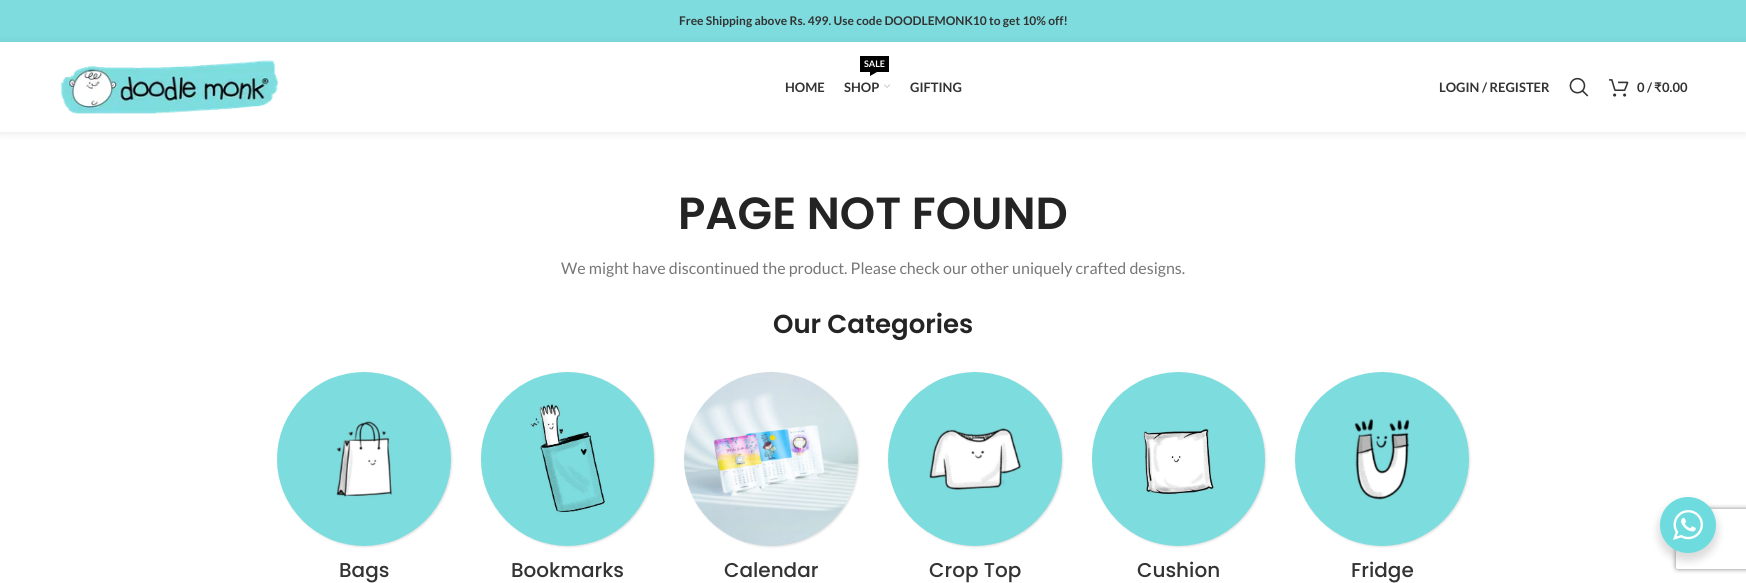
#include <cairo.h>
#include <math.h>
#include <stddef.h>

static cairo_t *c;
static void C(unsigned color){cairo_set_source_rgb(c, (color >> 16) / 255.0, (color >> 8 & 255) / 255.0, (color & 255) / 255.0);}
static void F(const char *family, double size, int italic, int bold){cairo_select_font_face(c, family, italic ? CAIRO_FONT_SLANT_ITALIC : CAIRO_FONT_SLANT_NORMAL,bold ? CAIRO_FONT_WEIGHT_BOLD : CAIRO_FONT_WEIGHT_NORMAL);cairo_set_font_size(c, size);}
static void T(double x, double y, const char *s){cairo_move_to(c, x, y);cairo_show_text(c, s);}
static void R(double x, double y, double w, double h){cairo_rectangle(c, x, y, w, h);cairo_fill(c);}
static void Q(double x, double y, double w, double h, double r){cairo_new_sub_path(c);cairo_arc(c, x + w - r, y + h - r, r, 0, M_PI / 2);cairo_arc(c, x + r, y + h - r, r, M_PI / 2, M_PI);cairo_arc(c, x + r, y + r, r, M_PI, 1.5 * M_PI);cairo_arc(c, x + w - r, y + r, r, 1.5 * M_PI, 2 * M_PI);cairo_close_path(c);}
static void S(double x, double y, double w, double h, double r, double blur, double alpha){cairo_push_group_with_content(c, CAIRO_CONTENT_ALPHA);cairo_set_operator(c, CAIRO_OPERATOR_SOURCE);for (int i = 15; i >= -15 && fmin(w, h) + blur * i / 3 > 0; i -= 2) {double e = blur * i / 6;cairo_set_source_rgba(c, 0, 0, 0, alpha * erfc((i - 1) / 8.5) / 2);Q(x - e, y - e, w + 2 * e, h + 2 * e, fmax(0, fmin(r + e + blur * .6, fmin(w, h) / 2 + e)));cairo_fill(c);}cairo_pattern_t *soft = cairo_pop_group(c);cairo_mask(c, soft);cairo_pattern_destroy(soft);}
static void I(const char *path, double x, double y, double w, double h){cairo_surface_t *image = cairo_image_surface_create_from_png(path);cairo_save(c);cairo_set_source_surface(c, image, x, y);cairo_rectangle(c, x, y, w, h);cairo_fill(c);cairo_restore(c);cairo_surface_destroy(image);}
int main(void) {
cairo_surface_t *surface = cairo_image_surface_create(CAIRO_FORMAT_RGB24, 1746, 583);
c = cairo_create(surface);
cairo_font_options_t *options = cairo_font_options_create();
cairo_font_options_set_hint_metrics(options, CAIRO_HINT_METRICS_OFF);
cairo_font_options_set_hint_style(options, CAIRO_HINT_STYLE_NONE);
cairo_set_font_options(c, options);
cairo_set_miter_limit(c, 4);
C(0xffffff);
cairo_paint(c);
C(0x7edcde);
R(0,0,1746,42);
F("Lato",12,0,1);
C(0x333333);
T(679,25,"Free Shipping above Rs. 499. Use code DOODLEMONK10 to get 10% off!");
cairo_save(c);
cairo_set_fill_rule(c,CAIRO_FILL_RULE_EVEN_ODD);
cairo_new_path(c);
cairo_move_to(c,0,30);
cairo_line_to(c,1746,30);
cairo_line_to(c,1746,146);
cairo_line_to(c,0,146);
cairo_close_path(c);
cairo_move_to(c,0,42);
cairo_line_to(c,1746,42);
cairo_line_to(c,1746,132);
cairo_line_to(c,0,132);
cairo_close_path(c);
cairo_clip(c);
C(0x000000);
S(0,43,1746,90,0,4,.1);
cairo_restore(c);
I("1.png",60,60,219,54);
F("Lato",13,0,1);
T(785,92,"HOME");
C(0x000000);
R(860,56,29,16);
F("Lato",9,0,1);
C(0xffffff);
T(864,67,"SALE");
C(0x000000);
cairo_new_path(c);
cairo_move_to(c,870,72);
cairo_line_to(c,877,72);
cairo_line_to(c,870,76);
cairo_close_path(c);
cairo_fill(c);
F("Lato",13,0,1);
C(0x333333);
T(844,92,"SHOP");
I("2.png",884,84,6,4);
T(910,92,"GIFTING");
T(1439,92,"LOGIN / REGISTER");
I("3.png",1569,77,20,20);
I("4.png",1609,79,20,18);
T(1637,92,"0 /");
F("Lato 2",13,0,1);
T(1654,92,"₹");
F("Lato",13,0,1);
T(1662,92,"0.00");
F("Poppins SemiBold",45,0,0);
C(0x242424);
T(678,229,"PAGE NOT FOUND");
F("Lato",16,0,0);
C(0x777777);
T(561,274,"We might have discontinued the product. Please check our other uniquely crafted designs.");
F("Poppins SemiBold",26,0,0);
C(0x242424);
T(773,333,"Our Categories");
C(0x000000);
S(278,373,174,174,87,1,.12);
I("5.png",277,372,174,174);
F("Poppins Medium",20,0,0);
C(0x333333);
T(339,577,"Bags");
C(0x000000);
S(482,373,173,174,86.5,1,.12);
I("6.png",481,372,173,174);
C(0x333333);
T(511,577,"Bookmarks");
C(0x000000);
S(685,373,174,174,87,1,.12);
I("7.png",684,372,174,174);
C(0x333333);
T(724,577,"Calendar");
C(0x000000);
S(889,373,174,174,87,1,.12);
I("8.png",888,372,174,174);
C(0x333333);
T(929,577,"Crop Top");
C(0x000000);
S(1093,373,173,174,86.5,1,.12);
I("9.png",1092,372,173,174);
C(0x333333);
T(1137,577,"Cushion");
C(0x000000);
S(1296,373,174,174,87,1,.12);
I("10.png",1295,372,174,174);
C(0x333333);
T(1351,577,"Fridge");
C(0x000000);
S(1658,501,60,60,30,4,.14);
cairo_save(c);
cairo_set_fill_rule(c,CAIRO_FILL_RULE_EVEN_ODD);
cairo_new_path(c);
cairo_move_to(c,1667,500);
cairo_line_to(c,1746,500);
cairo_line_to(c,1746,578);
cairo_line_to(c,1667,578);
cairo_close_path(c);
cairo_move_to(c,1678,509);
cairo_line_to(c,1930,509);
cairo_curve_to(c,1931,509,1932,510,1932,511);
cairo_line_to(c,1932,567);
cairo_curve_to(c,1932,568,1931,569,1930,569);
cairo_line_to(c,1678,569);
cairo_curve_to(c,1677,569,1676,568,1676,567);
cairo_line_to(c,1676,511);
cairo_curve_to(c,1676,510,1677,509,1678,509);
cairo_close_path(c);
cairo_clip(c);
C(0x808080);
S(1676,509,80,60,2,2.5,1);
cairo_restore(c);
C(0x6edcde);
cairo_arc(c,1688,525,28,0,2 * M_PI);
cairo_fill(c);
I("11.png",1673,510,30,30);
cairo_surface_write_to_png(surface, "o.png");
cairo_font_options_destroy(options);
cairo_destroy(c);
cairo_surface_destroy(surface);
return 0;
}
